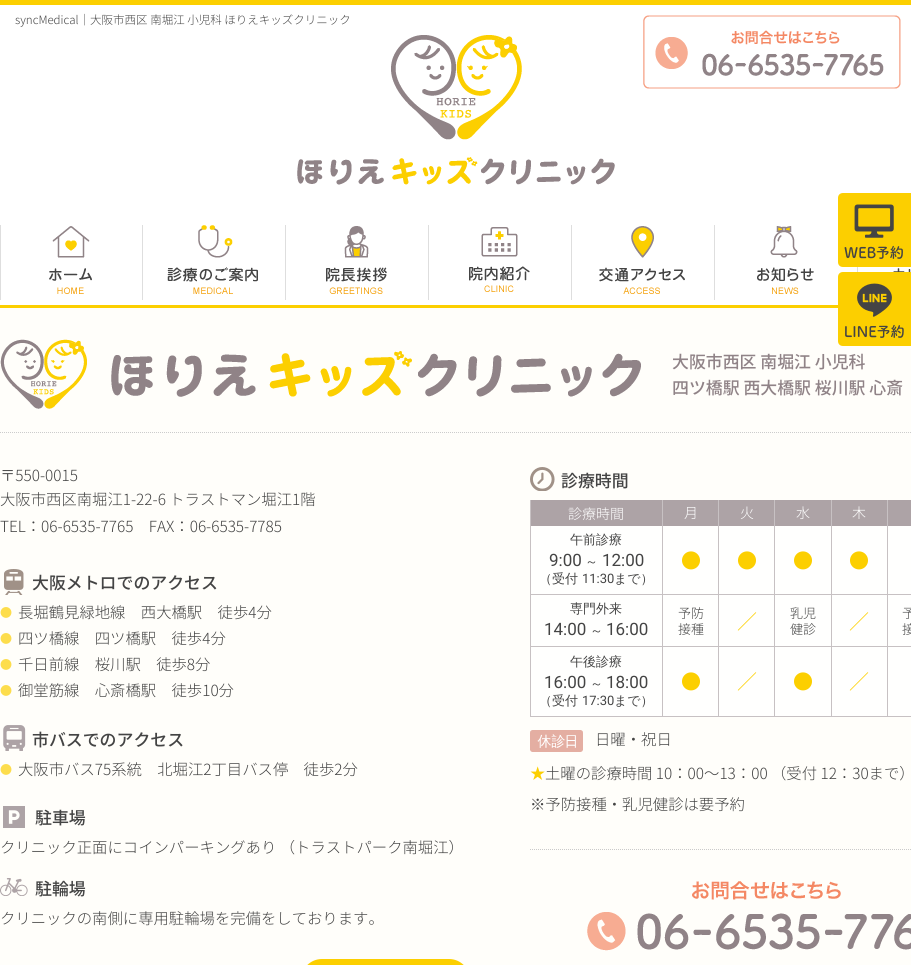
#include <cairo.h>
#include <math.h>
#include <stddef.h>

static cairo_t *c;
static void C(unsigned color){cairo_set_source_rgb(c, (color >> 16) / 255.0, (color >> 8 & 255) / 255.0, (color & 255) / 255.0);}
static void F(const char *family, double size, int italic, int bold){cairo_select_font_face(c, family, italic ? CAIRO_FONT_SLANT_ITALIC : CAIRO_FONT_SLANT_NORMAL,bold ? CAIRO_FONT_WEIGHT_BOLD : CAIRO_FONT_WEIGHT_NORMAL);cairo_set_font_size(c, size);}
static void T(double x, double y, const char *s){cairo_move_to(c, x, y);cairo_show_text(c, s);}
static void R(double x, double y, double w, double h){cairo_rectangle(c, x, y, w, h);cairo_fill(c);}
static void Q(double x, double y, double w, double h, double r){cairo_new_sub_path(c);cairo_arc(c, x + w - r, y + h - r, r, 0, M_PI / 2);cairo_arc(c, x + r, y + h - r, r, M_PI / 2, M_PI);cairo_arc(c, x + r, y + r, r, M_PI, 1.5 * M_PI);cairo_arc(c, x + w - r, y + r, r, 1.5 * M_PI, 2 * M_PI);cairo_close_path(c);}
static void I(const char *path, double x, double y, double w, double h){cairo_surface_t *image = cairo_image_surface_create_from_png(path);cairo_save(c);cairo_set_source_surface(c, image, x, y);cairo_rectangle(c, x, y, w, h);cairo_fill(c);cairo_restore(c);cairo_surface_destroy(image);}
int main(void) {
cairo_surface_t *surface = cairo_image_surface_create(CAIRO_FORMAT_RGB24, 911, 965);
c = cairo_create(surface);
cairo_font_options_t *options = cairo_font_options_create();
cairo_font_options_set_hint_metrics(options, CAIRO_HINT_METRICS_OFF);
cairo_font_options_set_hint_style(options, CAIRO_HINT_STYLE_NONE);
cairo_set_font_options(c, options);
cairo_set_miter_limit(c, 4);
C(0xffffff);
cairo_paint(c);
C(0xfccf00);
R(0,0,911,5);
F("Noto Sans JP Light",11.5,0,0);
C(0x444444);
T(15,24,"syncMedical｜大阪市西区 南堀江 小児科 ほりえキッズクリニック");
I("1.png",297,35,318,150);
I("2.png",643,15,258,74);
I("3.png",0,225,92,75);
I("4.png",142,225,116,75);
I("5.png",285,225,102,75);
I("6.png",428,225,102,75);
I("7.png",571,225,114,75);
I("8.png",714,225,100,75);
I("9.png",857,267,54,5);
C(0xfccf00);
cairo_new_path(c);
cairo_move_to(c,843,193);
cairo_line_to(c,911,193);
cairo_line_to(c,911,267);
cairo_line_to(c,843,267);
cairo_curve_to(c,840,267,838,265,838,262);
cairo_line_to(c,838,198);
cairo_curve_to(c,838,195,840,193,843,193);
cairo_close_path(c);
cairo_fill(c);
I("10.png",844,204,59,55);
C(0xfffefa);
R(0,308,911,657);
C(0xfccf00);
cairo_new_path(c);
cairo_move_to(c,843,272);
cairo_line_to(c,911,272);
cairo_line_to(c,911,346);
cairo_line_to(c,843,346);
cairo_curve_to(c,840,346,838,344,838,341);
cairo_line_to(c,838,277);
cairo_curve_to(c,838,274,840,272,843,272);
cairo_close_path(c);
cairo_fill(c);
I("11.png",845,283,59,55);
R(0,305,838,3);
cairo_new_path(c);
cairo_move_to(c,0,432.5);
cairo_line_to(c,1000,432.5);
C(0xcccccc);
cairo_set_line_width(c,1);
cairo_set_dash(c,(double[]){1,1},2,0);
cairo_stroke(c);
I("12.png",0,339,641,70);
F("Noto Sans JP Medium",16.9,0,0);
C(0x908387);
T(672,368,"大阪市西区 南堀江 小児科");
T(672,394,"四ツ橋駅 西大橋駅 桜川駅 心斎");
F("Noto Sans JP Light",15.35,0,0);
C(0x444444);
T(0,481,"〒550-0015");
T(0,505,"大阪市西区南堀江1-22-6 トラストマン堀江1階");
T(0,532,"TEL：06-6535-7765　FAX：06-6535-7785");
I("13.png",4,569,20,26);
F("Noto Sans JP Medium",16.9,0,0);
T(32,589,"大阪メトロでのアクセス");
F("Noto Sans JP Light",12,0,0);
C(0xfddd4c);
T(0,617,"●");
F("Noto Sans JP Light",15.35,0,0);
C(0x444444);
T(18,618,"長堀鶴見緑地線　西大橋駅　徒歩4分");
F("Noto Sans JP Light",12,0,0);
C(0xfddd4c);
T(0,643,"●");
F("Noto Sans JP Light",15.35,0,0);
C(0x444444);
T(18,644,"四ツ橋線　四ツ橋駅　徒歩4分");
F("Noto Sans JP Light",12,0,0);
C(0xfddd4c);
T(0,669,"●");
F("Noto Sans JP Light",15.35,0,0);
C(0x444444);
T(18,670,"千日前線　桜川駅　徒歩8分");
F("Noto Sans JP Light",12,0,0);
C(0xfddd4c);
T(0,695,"●");
F("Noto Sans JP Light",15.35,0,0);
C(0x444444);
T(18,696,"御堂筋線　心斎橋駅　徒歩10分");
I("14.png",3,725,23,26);
F("Noto Sans JP Medium",16.9,0,0);
T(32,746,"市バスでのアクセス");
F("Noto Sans JP Light",12,0,0);
C(0xfddd4c);
T(0,774,"●");
F("Noto Sans JP Light",15.35,0,0);
C(0x444444);
T(18,775,"大阪市バス75系統　北堀江2丁目バス停　徒歩2分");
I("15.png",3,806,22,22);
F("Noto Sans JP Medium",16.9,0,0);
T(35,824,"駐車場");
F("Noto Sans JP Light",15.35,0,0);
T(0,853,"クリニック正面にコインパーキングあり （トラストパーク南堀江）");
I("16.png",0,878,28,18);
F("Noto Sans JP Medium",16.9,0,0);
T(35,895,"駐輪場");
F("Noto Sans JP Light",15.35,0,0);
T(0,924,"クリニックの南側に専用駐輪場を完備をしております。");
C(0xfccf00);
Q(301,959,169,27,21);
cairo_fill(c);
I("17.png",530,467,25,24);
F("Noto Sans JP Medium",16.9,0,0);
C(0x444444);
T(561,487,"診療時間");
C(0xc7c1c3);
R(530,500,1,217);
C(0xada3a6);
R(531,500,131,26);
F("Noto Sans JP Light",14,0,0);
C(0xffffff);
T(568,519,"診療時間");
C(0xada3a6);
R(663,500,55,26);
C(0xc7c1c3);
R(662,500,1,26);
C(0xffffff);
T(684,518,"月");
C(0xada3a6);
R(719,500,55,26);
C(0xc7c1c3);
R(718,500,1,26);
C(0xffffff);
T(740,518,"火");
C(0xada3a6);
R(775,500,56,26);
C(0xc7c1c3);
R(774,500,1,26);
C(0xffffff);
T(796,518,"水");
C(0xada3a6);
R(832,500,55,26);
C(0xc7c1c3);
R(831,500,1,26);
C(0xffffff);
T(852,518,"木");
C(0xada3a6);
R(888,500,23,26);
C(0xc7c1c3);
R(887,500,1,26);
C(0xfffffe);
R(531,526,131,68);
C(0xc7c1c3);
R(531,594,380,1);
F("WenQuanYi Zen Hei Medium",13,0,0);
C(0x444444);
T(570,544,"午前診療");
F("Roboto",17,0,0);
T(549,566,"9:00");
F("WenQuanYi Zen Hei Medium",13,0,0);
T(585,566,"～");
F("Roboto",17,0,0);
T(602,566,"12:00");
F("WenQuanYi Zen Hei Medium",13,0,0);
T(539,583,"（受付");
F("Roboto",13,0,0);
T(582,583,"11:30");
F("WenQuanYi Zen Hei Medium",13,0,0);
T(614,583,"まで）");
C(0xfffffe);
R(663,526,55,68);
C(0xc7c1c3);
R(662,526,1,69);
F("Noto Sans JP Light",20,0,0);
C(0xfccf00);
T(681,568,"●");
C(0xfffffe);
R(719,526,55,68);
C(0xc7c1c3);
R(718,526,1,69);
C(0xfccf00);
T(737,568,"●");
C(0xfffffe);
R(775,526,56,68);
C(0xc7c1c3);
R(774,526,1,69);
C(0xfccf00);
T(793,568,"●");
C(0xfffffe);
R(832,526,55,68);
C(0xc7c1c3);
R(831,526,1,69);
C(0xfccf00);
T(849,568,"●");
C(0xfffffe);
R(888,526,23,68);
C(0xc7c1c3);
R(887,526,1,69);
C(0xfffffe);
R(531,595,131,51);
C(0xc7c1c3);
R(531,646,380,1);
F("WenQuanYi Zen Hei Medium",13,0,0);
C(0x444444);
T(570,613,"専門外来");
F("Roboto",17,0,0);
T(544,635,"14:00");
F("WenQuanYi Zen Hei Medium",13,0,0);
T(590,635,"～");
F("Roboto",17,0,0);
T(606,635,"16:00");
C(0xfffffe);
R(663,595,55,51);
C(0xc7c1c3);
R(662,595,1,52);
F("Noto Sans JP Light",13,0,0);
C(0x444444);
T(678,618,"予防");
T(678,634,"接種");
C(0xfffffe);
R(719,595,55,51);
C(0xc7c1c3);
R(718,595,1,52);
F("Noto Sans JP Light",20,0,0);
C(0xfccf00);
T(737,629,"／");
C(0xfffffe);
R(775,595,56,51);
C(0xc7c1c3);
R(774,595,1,52);
F("Noto Sans JP Light",13,0,0);
C(0x444444);
T(790,618,"乳児");
T(790,634,"健診");
C(0xfffffe);
R(832,595,55,51);
C(0xc7c1c3);
R(831,595,1,52);
F("Noto Sans JP Light",20,0,0);
C(0xfccf00);
T(849,629,"／");
C(0xfffffe);
R(888,595,23,51);
C(0xc7c1c3);
R(887,595,1,52);
F("Noto Sans JP Light",13,0,0);
C(0x444444);
T(902,618,"予");
T(902,634,"接");
C(0xfffffe);
R(531,647,131,69);
C(0xc7c1c3);
R(531,716,380,1);
F("WenQuanYi Zen Hei Medium",13,0,0);
C(0x444444);
T(570,666,"午後診療");
F("Roboto",17,0,0);
T(544,688,"16:00");
F("WenQuanYi Zen Hei Medium",13,0,0);
T(590,688,"～");
F("Roboto",17,0,0);
T(606,688,"18:00");
F("WenQuanYi Zen Hei Medium",13,0,0);
T(539,705,"（受付");
F("Roboto",13,0,0);
T(582,705,"17:30");
F("WenQuanYi Zen Hei Medium",13,0,0);
T(614,705,"まで）");
C(0xfffffe);
R(663,647,55,69);
C(0xc7c1c3);
R(662,647,1,70);
F("Noto Sans JP Light",20,0,0);
C(0xfccf00);
T(681,689,"●");
C(0xfffffe);
R(719,647,55,69);
C(0xc7c1c3);
R(718,647,1,70);
C(0xfccf00);
T(737,689,"／");
C(0xfffffe);
R(775,647,56,69);
C(0xc7c1c3);
R(774,647,1,70);
C(0xfccf00);
T(793,689,"●");
C(0xfffffe);
R(832,647,55,69);
C(0xc7c1c3);
R(831,647,1,70);
C(0xfccf00);
T(849,689,"／");
C(0xfffffe);
R(888,647,23,69);
C(0xc7c1c3);
R(887,647,1,70);
I("18.png",530,730,53,22);
F("Noto Sans JP Light",15.35,0,0);
C(0x444444);
T(595,745,"日曜・祝日");
C(0xfccf00);
T(530,779,"★");
C(0x444444);
T(545,779,"土曜の診療時間 10：00～13：00 （受付 12：30まで）");
T(530,810,"※予防接種・乳児健診は要予約");
cairo_new_path(c);
cairo_move_to(c,530,849.5);
cairo_line_to(c,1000,849.5);
C(0xcacaca);
cairo_stroke(c);
I("19.png",587,881,324,70);
cairo_surface_write_to_png(surface, "o.png");
cairo_font_options_destroy(options);
cairo_destroy(c);
cairo_surface_destroy(surface);
return 0;
}
